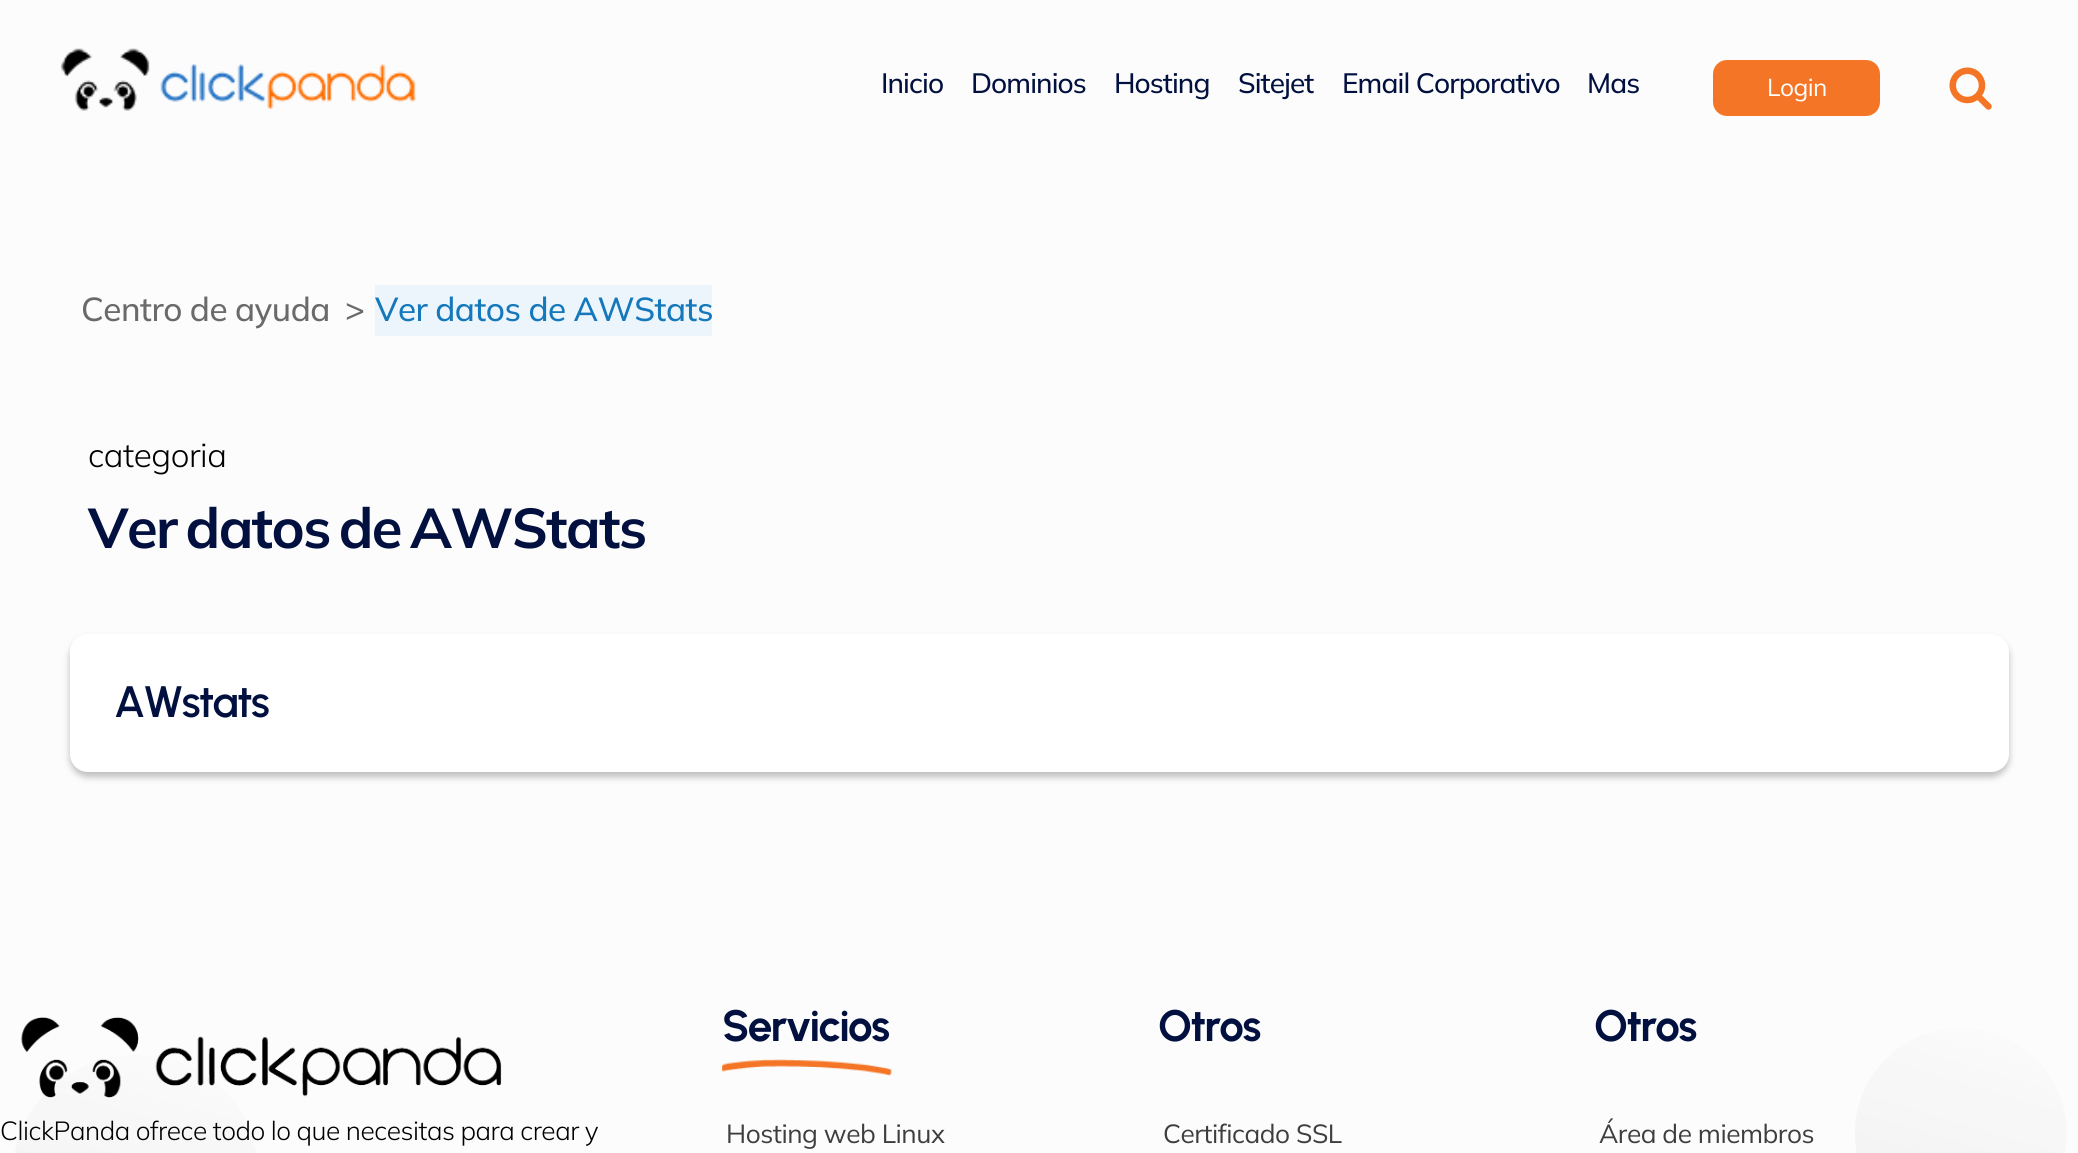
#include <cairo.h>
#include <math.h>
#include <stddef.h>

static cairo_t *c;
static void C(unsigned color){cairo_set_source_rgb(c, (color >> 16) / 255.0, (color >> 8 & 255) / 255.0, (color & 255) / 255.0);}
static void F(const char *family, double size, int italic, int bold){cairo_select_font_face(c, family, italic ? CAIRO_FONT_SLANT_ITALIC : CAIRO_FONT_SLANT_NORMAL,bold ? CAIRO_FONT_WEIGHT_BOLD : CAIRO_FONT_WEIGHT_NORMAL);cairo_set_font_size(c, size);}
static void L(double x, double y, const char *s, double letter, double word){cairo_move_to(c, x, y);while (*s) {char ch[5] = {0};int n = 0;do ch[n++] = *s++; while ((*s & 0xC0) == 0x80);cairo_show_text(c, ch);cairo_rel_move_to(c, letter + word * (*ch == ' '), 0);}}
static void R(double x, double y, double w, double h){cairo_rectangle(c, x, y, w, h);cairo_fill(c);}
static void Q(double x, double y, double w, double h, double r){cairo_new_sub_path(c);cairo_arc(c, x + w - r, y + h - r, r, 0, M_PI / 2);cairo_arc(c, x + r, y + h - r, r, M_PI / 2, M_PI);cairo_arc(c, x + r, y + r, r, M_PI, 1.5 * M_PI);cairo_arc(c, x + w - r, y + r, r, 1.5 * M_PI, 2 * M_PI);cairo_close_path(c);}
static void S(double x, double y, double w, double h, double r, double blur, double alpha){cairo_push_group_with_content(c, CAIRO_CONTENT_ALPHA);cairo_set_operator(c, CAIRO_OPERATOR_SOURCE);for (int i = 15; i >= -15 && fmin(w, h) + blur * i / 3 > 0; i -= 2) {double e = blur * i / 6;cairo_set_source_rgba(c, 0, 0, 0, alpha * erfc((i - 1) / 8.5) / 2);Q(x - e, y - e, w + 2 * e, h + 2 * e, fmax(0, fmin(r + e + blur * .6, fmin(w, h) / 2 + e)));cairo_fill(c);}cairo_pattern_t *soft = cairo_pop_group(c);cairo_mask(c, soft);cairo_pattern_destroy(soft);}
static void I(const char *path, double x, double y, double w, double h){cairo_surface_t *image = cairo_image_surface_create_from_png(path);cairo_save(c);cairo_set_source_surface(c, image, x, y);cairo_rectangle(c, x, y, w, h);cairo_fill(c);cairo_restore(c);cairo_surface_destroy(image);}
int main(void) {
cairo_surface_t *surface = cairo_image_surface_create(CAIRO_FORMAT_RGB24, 2078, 1153);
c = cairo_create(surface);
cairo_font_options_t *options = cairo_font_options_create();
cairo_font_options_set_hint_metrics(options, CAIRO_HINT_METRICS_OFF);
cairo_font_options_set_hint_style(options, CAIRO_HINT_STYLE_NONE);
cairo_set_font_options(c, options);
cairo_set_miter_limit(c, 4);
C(0xfcfcfc);
cairo_paint(c);
I("1.png",60,48,356,63);
F("Mulish Medium",28,0,0);
C(0x01103e);
L(881,93,"Inicio",-.9,0);
L(971,93,"Dominios",-.9,0);
L(1114,93,"Hosting",-.9,0);
L(1238,93,"Sitejet",-.9,0);
L(1342,93,"Email Corporativo",-.9,0);
L(1587,93,"Mas",-.9,0);
C(0xf47525);
Q(1713,60,167,56,14);
cairo_fill(c);
F("Mulish",24.5,0,0);
C(0xffffff);
L(1767,96,"Login",-.47,0);
I("2.png",1949,67,43,43);
F("Mulish Medium",33.25,0,0);
C(0x6a6a6a);
L(81,321,"Centro de ayuda",-.47,-.5);
L(345,321,">",-.47,0);
C(0xecf5fc);
R(375,285,337,51);
C(0x1478bb);
L(375,321,"Ver datos de AWStats",-.47,-.5);
F("Mulish Light",33.25,0,0);
C(0x000000);
L(88,467,"categoria",-.47,0);
F("Mulish",56,0,1);
C(0x01103e);
L(88,548,"Ver datos de AWStats",-1.5,-5);
C(0x000000);
S(70,639,1939,138,18,3.5,.25);
C(0xffffff);
Q(70,634,1939,138,18);
cairo_fill(c);
F("Urbanist SemiBold",44,0,0);
C(0x01103e);
L(114,717,"AWstats",-1.75,0);
I("5.png",15,1028,2052,125);
I("3.png",21,1017,481,81);
F("Mulish Light",26.25,0,0);
C(0x000000);
L(0,1140,"ClickPanda ofrece todo lo que necesitas para crear y",-.47,-.25);
F("Urbanist",44,0,1);
C(0x01103e);
L(722,1041,"Servicios",-1.75,0);
I("4.png",721,1059,171,17);
F("Mulish",26.25,0,0);
C(0x3e3e3e);
L(726,1143,"Hosting web Linux",-.47,0);
F("Urbanist",44,0,1);
C(0x01103e);
L(1158,1041,"Otros",-1.75,0);
F("Mulish",26.25,0,0);
C(0x3e3e3e);
L(1163,1143,"Certificado SSL",-.47,0);
F("Urbanist",44,0,1);
C(0x01103e);
L(1594,1041,"Otros",-1.75,0);
F("Mulish",26.25,0,0);
C(0x3e3e3e);
L(1599,1143,"Área de miembros",-.47,0);
cairo_surface_write_to_png(surface, "o.png");
cairo_font_options_destroy(options);
cairo_destroy(c);
cairo_surface_destroy(surface);
return 0;
}
